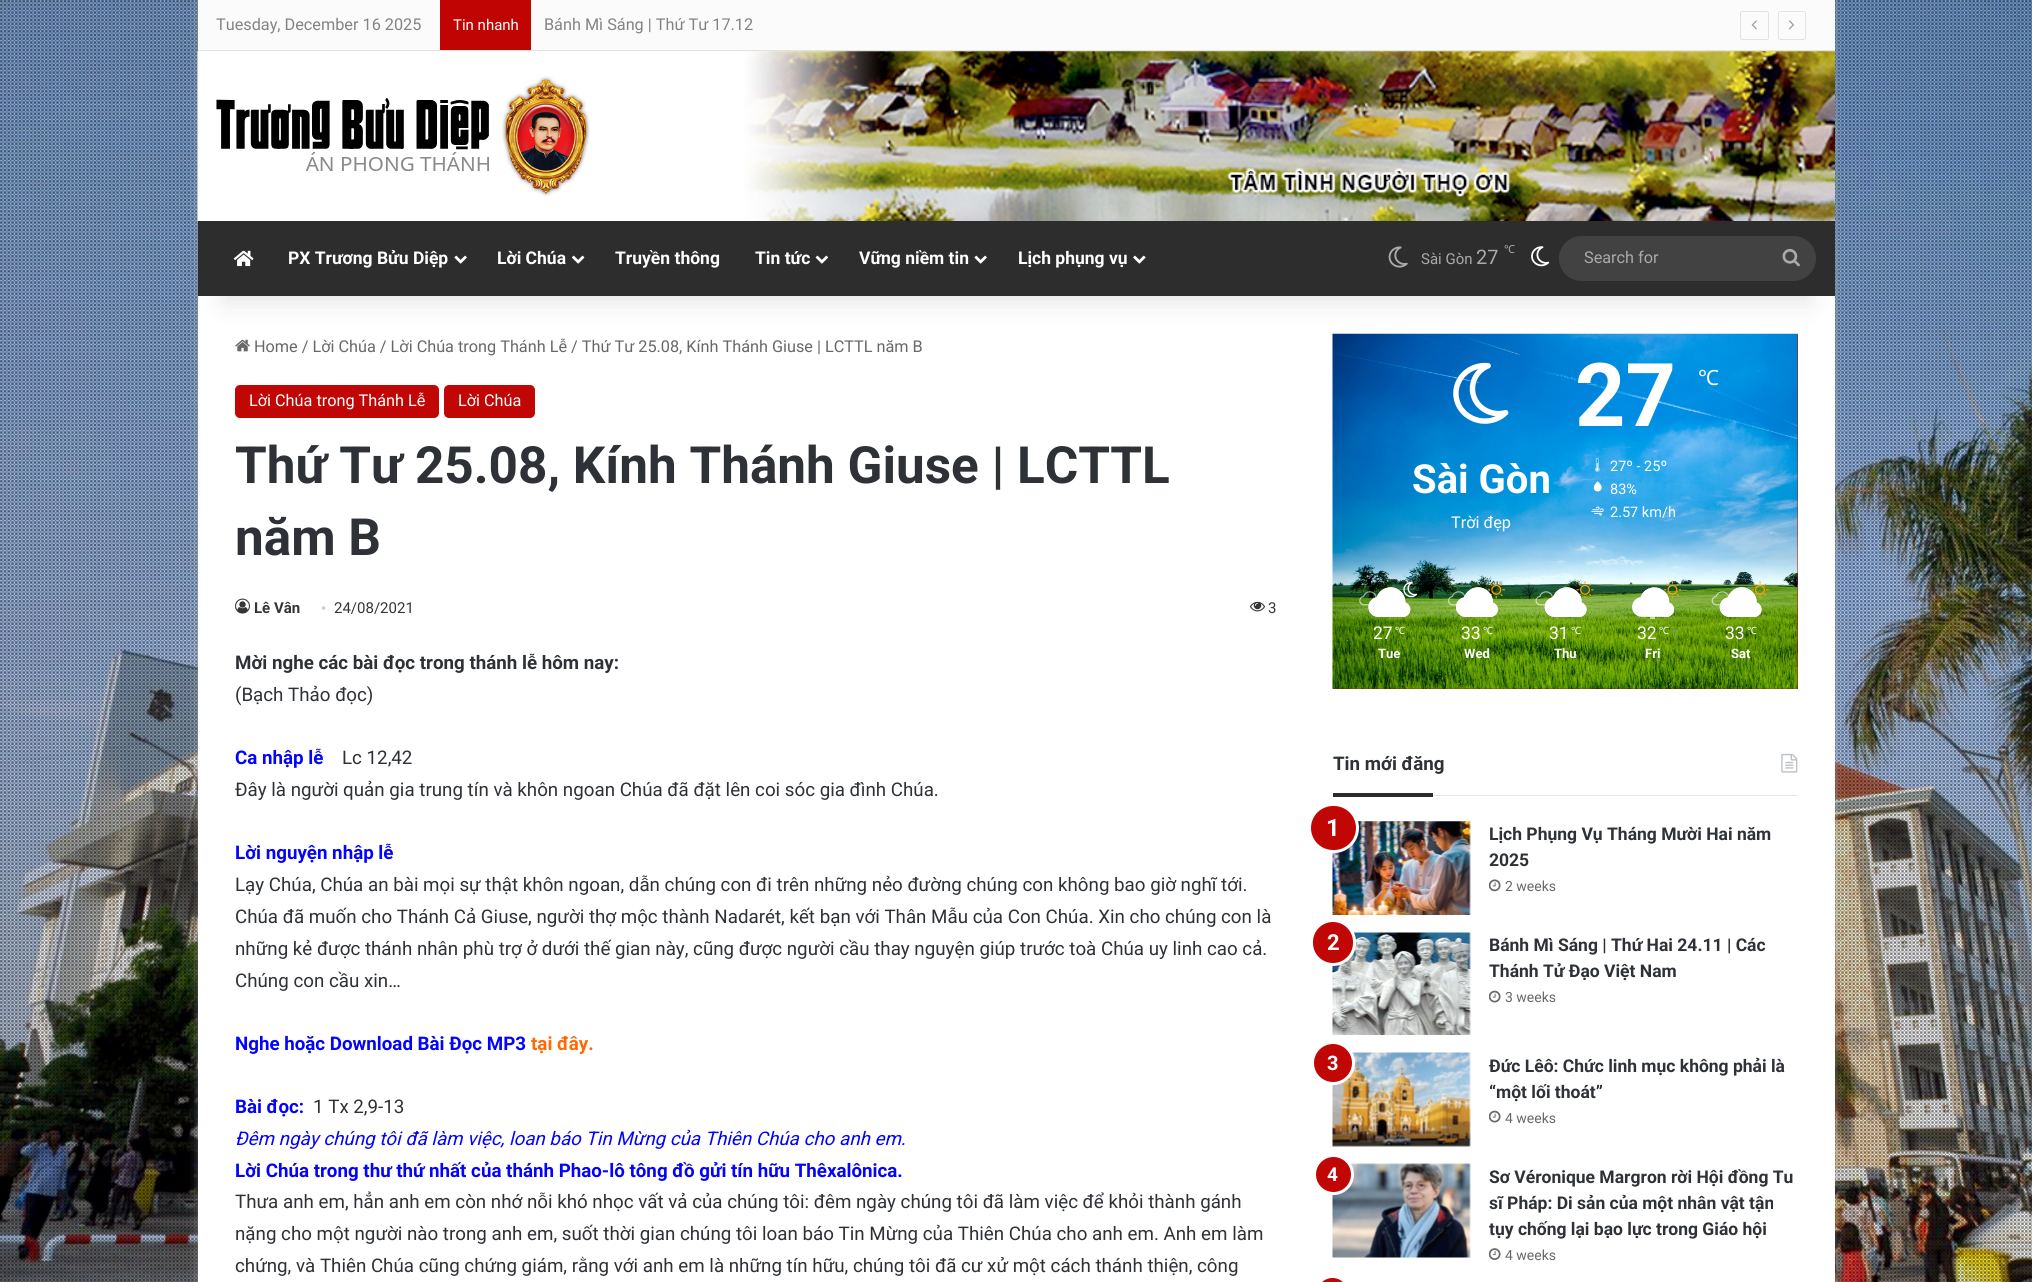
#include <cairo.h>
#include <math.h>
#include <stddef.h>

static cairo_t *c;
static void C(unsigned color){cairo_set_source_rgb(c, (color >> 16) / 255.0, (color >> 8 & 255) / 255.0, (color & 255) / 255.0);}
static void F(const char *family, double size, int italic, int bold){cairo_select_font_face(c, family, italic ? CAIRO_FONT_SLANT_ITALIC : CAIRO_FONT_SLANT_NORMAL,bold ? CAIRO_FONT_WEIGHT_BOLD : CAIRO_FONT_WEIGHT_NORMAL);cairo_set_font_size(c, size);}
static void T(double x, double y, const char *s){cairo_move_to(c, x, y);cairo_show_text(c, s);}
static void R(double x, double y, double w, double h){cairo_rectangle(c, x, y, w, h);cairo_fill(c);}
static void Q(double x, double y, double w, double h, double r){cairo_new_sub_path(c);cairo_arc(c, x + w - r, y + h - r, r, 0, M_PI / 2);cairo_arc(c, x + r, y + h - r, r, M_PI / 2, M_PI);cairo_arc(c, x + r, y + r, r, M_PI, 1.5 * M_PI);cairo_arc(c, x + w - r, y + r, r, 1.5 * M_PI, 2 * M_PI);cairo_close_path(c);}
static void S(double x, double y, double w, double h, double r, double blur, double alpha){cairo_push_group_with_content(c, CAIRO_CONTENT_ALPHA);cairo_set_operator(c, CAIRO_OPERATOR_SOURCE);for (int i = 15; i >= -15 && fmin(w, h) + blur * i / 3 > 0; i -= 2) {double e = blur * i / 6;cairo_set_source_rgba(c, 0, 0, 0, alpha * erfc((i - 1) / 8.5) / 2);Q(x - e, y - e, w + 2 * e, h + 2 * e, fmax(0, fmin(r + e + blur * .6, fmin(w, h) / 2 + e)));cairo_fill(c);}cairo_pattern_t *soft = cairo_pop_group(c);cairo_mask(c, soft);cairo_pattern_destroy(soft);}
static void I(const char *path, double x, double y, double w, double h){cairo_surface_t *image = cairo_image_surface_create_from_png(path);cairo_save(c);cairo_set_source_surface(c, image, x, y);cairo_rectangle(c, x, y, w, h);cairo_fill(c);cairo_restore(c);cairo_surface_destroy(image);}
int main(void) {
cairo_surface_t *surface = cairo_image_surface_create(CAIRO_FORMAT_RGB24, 2032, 1282);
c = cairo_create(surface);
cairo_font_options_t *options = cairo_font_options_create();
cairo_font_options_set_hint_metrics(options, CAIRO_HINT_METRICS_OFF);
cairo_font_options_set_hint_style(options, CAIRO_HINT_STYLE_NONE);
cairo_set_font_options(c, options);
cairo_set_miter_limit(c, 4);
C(0xffffff);
cairo_paint(c);
I("1.png",0,0,2032,1282);
I("2.png",0,0,2032,1282);
C(0xababab);
S(198,1,1637,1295,0,4.5,.5);
C(0xffffff);
R(198,51,1637,1231);
I("15.png",235,339,15,13);
C(0xc00403);
R(1333,334,465,355);
I("18.png",1332,333,466,356);
C(0x000000);
S(223,56,1587,247,0,12.5,.1);
C(0xfbfbfb);
R(198,0,1637,50);
C(0xe2e2e2);
R(198,50,1637,1);
F("Roboto",16.25,0,0);
C(0x838383);
T(216,30,"Tuesday, December 16 2025");
C(0xc00403);
R(440,0,91,50);
F("Roboto",15,0,0);
C(0xffffff);
T(453,30,"Tin nhanh");
F("Roboto",16.25,0,0);
C(0x838383);
T(544,30,"Bánh Mì Sáng | Thứ Tư 17.12");
Q(1740.5,11.5,28,28,2);
C(0xe2e2e2);
cairo_set_line_width(c,1);
cairo_stroke(c);
I("3.png",1751,20,6,10);
Q(1778.5,11.5,27,28,2);
cairo_stroke(c);
I("4.png",1788,20,7,10);
I("5.png",197,51,1638,171);
I("6.png",216,76,374,120);
C(0x2d2d2d);
R(198,221,1637,75);
I("7.png",233,250,21,17);
F("Roboto",17.5,0,1);
C(0xffffff);
T(288,264,"PX Trương Bửu Diệp");
I("8.png",454,255,13,9);
T(497,264,"Lời Chúa");
I("9.png",572,255,13,9);
T(615,264,"Truyền thông");
T(755,264,"Tin tức");
I("10.png",815,255,13,9);
T(859,264,"Vững niềm tin");
I("8.png",974,255,13,9);
T(1018,264,"Lịch phụng vụ");
I("11.png",1133,255,13,9);
I("12.png",1388,246,20,22);
F("Roboto",15,0,0);
C(0xaaaaaa);
T(1421,264,"Sài Gòn");
F("Roboto",20,0,0);
T(1476,264,"27");
F("Noto Sans",11,0,0);
T(1504,253,"℃");
I("13.png",1531,246,19,21);
C(0x424242);
Q(1559,236,257,45,22.5);
cairo_fill(c);
F("Roboto",16.25,0,0);
C(0xaaaaaa);
T(1584,263,"Search for");
I("14.png",1782,248,18,19);
C(0x686868);
T(254,352,"Home / Lời Chúa / Lời Chúa trong Thánh Lễ / Thứ Tư 25.08, Kính Thánh Giuse | LCTTL năm B");
C(0xc10706);
Q(235,385,204,33,5);
cairo_fill(c);
C(0xffffff);
T(249,406,"Lời Chúa trong Thánh Lễ");
C(0xc10706);
Q(444,385,91,33,5);
cairo_fill(c);
C(0xffffff);
T(458,406,"Lời Chúa");
F("Roboto",51.25,0,1);
C(0x2e3136);
T(235,483,"Thứ Tư 25.08, Kính Thánh Giuse | LCTTL");
T(235,555,"năm B");
I("16.png",235,598,15,16);
F("Roboto",15,0,1);
C(0x353535);
T(254,613,"Lê Vân");
F("Liberation Serif",15,0,0);
C(0xcdcdcd);
T(321,613,"•");
F("Roboto",15,0,0);
C(0x353535);
T(334,613,"24/08/2021");
I("17.png",1250,601,15,11);
T(1268,613,"3");
F("Roboto",18.75,0,1);
C(0x2e3136);
T(235,669,"Mời nghe các bài đọc trong thánh lễ hôm nay:");
F("Roboto",18.75,0,0);
T(235,701,"(Bạch Thảo đọc)");
F("Roboto",18.75,0,1);
C(0x0303ff);
T(235,764,"Ca nhập lễ");
F("Roboto",18.75,0,0);
C(0x2e3136);
T(342,764,"Lc 12,42");
T(235,796,"Đây là người quản gia trung tín và khôn ngoan Chúa đã đặt lên coi sóc gia đình Chúa.");
F("Roboto",18.75,0,1);
C(0x0303ff);
T(235,859,"Lời nguyện nhập lễ");
F("Roboto",18.75,0,0);
C(0x2e3136);
T(235,891,"Lạy Chúa, Chúa an bài mọi sự thật khôn ngoan, dẫn chúng con đi trên những nẻo đường chúng con không bao giờ nghĩ tới.");
T(235,923,"Chúa đã muốn cho Thánh Cả Giuse, người thợ mộc thành Nadarét, kết bạn với Thân Mẫu của Con Chúa. Xin cho chúng con là");
T(235,955,"những kẻ được thánh nhân phù trợ ở dưới thế gian này, cũng được người cầu thay nguyện giúp trước toà Chúa uy linh cao cả.");
T(235,987,"Chúng con cầu xin…");
F("Roboto",18.75,0,1);
C(0x0303ff);
T(235,1050,"Nghe hoặc Download Bài Đọc MP3");
C(0xff6803);
T(531,1050,"tại đây.");
C(0x0303ff);
T(235,1113,"Bài đọc:");
F("Roboto",18.75,0,0);
C(0x2e3136);
T(313,1113,"1 Tx 2,9-13");
F("Roboto",18.75,1,0);
C(0x0303ff);
T(235,1145,"Đêm ngày chúng tôi đã làm việc, loan báo Tin Mừng của Thiên Chúa cho anh em.");
F("Roboto",18.75,0,1);
T(235,1177,"Lời Chúa trong thư thứ nhất của thánh Phao-lô tông đồ gửi tín hữu Thêxalônica.");
F("Roboto",18.75,0,0);
C(0x2e3136);
T(235,1208,"Thưa anh em, hẳn anh em còn nhớ nỗi khó nhọc vất vả của chúng tôi: đêm ngày chúng tôi đã làm việc để khỏi thành gánh");
T(235,1240,"nặng cho một người nào trong anh em, suốt thời gian chúng tôi loan báo Tin Mừng của Thiên Chúa cho anh em. Anh em làm");
T(235,1272,"chứng, và Thiên Chúa cũng chứng giám, rằng với anh em là những tín hữu, chúng tôi đã cư xử một cách thánh thiện, công");
I("19.png",1453,362,56,62);
F("Roboto",40,0,1);
C(0xffffff);
T(1412,493,"Sài Gòn");
F("Roboto",16.25,0,0);
T(1451,528,"Trời đẹp");
F("Roboto",88,0,1);
T(1575,426,"27");
F("Noto Sans",21,0,0);
T(1698,385,"℃");
I("20.png",1595,458,5,14);
F("Roboto",14.5,0,0);
T(1610,471,"27º - 25º");
I("21.png",1593,481,9,11);
T(1610,494,"83%");
I("22.png",1591,506,13,10);
T(1610,517,"2.57 km/h");
I("23.png",1403,581,15,17);
I("26.png",1359,591,18,15);
I("24.png",1368,587,43,30);
I("25.png",1368,587,43,30);
F("Roboto",17.5,0,0);
T(1373,639,"27");
F("Noto Sans",10,0,0);
T(1395,634,"℃");
F("Roboto",13,0,1);
T(1378,658,"Tue");
I("27.png",1487,581,18,18);
I("30.png",1448,591,18,15);
I("28.png",1456,587,42,30);
I("29.png",1456,587,42,30);
F("Roboto",17.5,0,0);
T(1461,639,"33");
F("Noto Sans",10,0,0);
T(1483,634,"℃");
F("Roboto",13,0,1);
T(1464,658,"Wed");
I("31.png",1576,581,18,18);
I("34.png",1535,591,18,15);
I("32.png",1544,587,43,30);
I("33.png",1544,587,43,30);
F("Roboto",17.5,0,0);
T(1549,639,"31");
F("Noto Sans",10,0,0);
T(1571,634,"℃");
F("Roboto",13,0,1);
T(1554,658,"Thu");
I("35.png",1663,581,19,18);
I("36.png",1632,587,42,30);
I("37.png",1632,587,43,30);
cairo_set_source_rgba(c,1,1,1,0.6);
R(1650,616,5,3);
F("Roboto",17.5,0,0);
C(0xffffff);
T(1637,639,"32");
F("Noto Sans",10,0,0);
T(1659,634,"℃");
F("Roboto",13,0,1);
T(1645,658,"Fri");
I("38.png",1751,581,18,18);
I("41.png",1711,591,18,15);
I("39.png",1719,587,43,30);
I("40.png",1719,587,43,30);
F("Roboto",17.5,0,0);
T(1725,639,"33");
F("Noto Sans",10,0,0);
T(1747,634,"℃");
F("Roboto",13,0,1);
T(1731,658,"Sat");
C(0xe6e6e6);
R(1433,795,365,1);
F("Roboto",18.75,0,1);
C(0x2e3136);
T(1333,770,"Tin mới đăng");
I("42.png",1781,753,17,20);
C(0x292b2f);
R(1333,793,100,4);
I("43.png",1332,821,139,94);
C(0xc10706);
Q(1309.5,804.5,48,47,23.5);
cairo_fill_preserve(c);
C(0xffffff);
cairo_set_line_width(c,3);
cairo_stroke(c);
F("Roboto",24,0,1);
T(1326,836,"1");
F("Roboto",17.5,0,1);
C(0x2e3136);
T(1489,840,"Lịch Phụng Vụ Tháng Mười Hai năm");
T(1489,866,"2025");
I("44.png",1489,879,12,13);
F("Roboto",14,0,0);
C(0x686868);
T(1505,891,"2 weeks");
I("45.png",1332,932,139,103);
C(0xc10706);
Q(1311.5,920.5,43,44,21.5);
cairo_fill_preserve(c);
C(0xffffff);
cairo_stroke(c);
F("Roboto",22,0,1);
T(1327,950,"2");
F("Roboto",17.5,0,1);
C(0x2e3136);
T(1489,951,"Bánh Mì Sáng | Thứ Hai 24.11 | Các");
T(1489,977,"Thánh Tử Đạo Việt Nam");
I("46.png",1489,990,12,13);
F("Roboto",14,0,0);
C(0x686868);
T(1505,1002,"3 weeks");
I("47.png",1332,1052,139,95);
C(0xc10706);
cairo_arc(c,1333,1063,20.5,0,2 * M_PI);
cairo_fill_preserve(c);
C(0xffffff);
cairo_stroke(c);
F("Roboto",20,0,1);
T(1327,1070,"3");
F("Roboto",17.5,0,1);
C(0x2e3136);
T(1489,1072,"Đức Lêô: Chức linh mục không phải là");
T(1489,1098,"“một lối thoát”");
I("46.png",1489,1110,12,13);
F("Roboto",14,0,0);
C(0x686868);
T(1505,1123,"4 weeks");
I("48.png",1332,1163,139,95);
C(0xc10706);
cairo_arc(c,1333.5,1174.5,19,0,2 * M_PI);
cairo_fill_preserve(c);
C(0xffffff);
cairo_stroke(c);
F("Roboto",19,0,1);
T(1327,1181,"4");
F("Roboto",17.5,0,1);
C(0x2e3136);
T(1489,1183,"Sơ Véronique Margron rời Hội đồng Tu");
T(1489,1209,"sĩ Pháp: Di sản của một nhân vật tận");
T(1489,1235,"tụy chống lại bạo lực trong Giáo hội");
I("49.png",1489,1248,12,12);
F("Roboto",14,0,0);
C(0x686868);
T(1505,1260,"4 weeks");
C(0xc10706);
Q(1315.5,1276.5,34,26,17);
cairo_fill_preserve(c);
C(0xffffff);
cairo_stroke(c);
cairo_surface_write_to_png(surface, "o.png");
cairo_font_options_destroy(options);
cairo_destroy(c);
cairo_surface_destroy(surface);
return 0;
}
